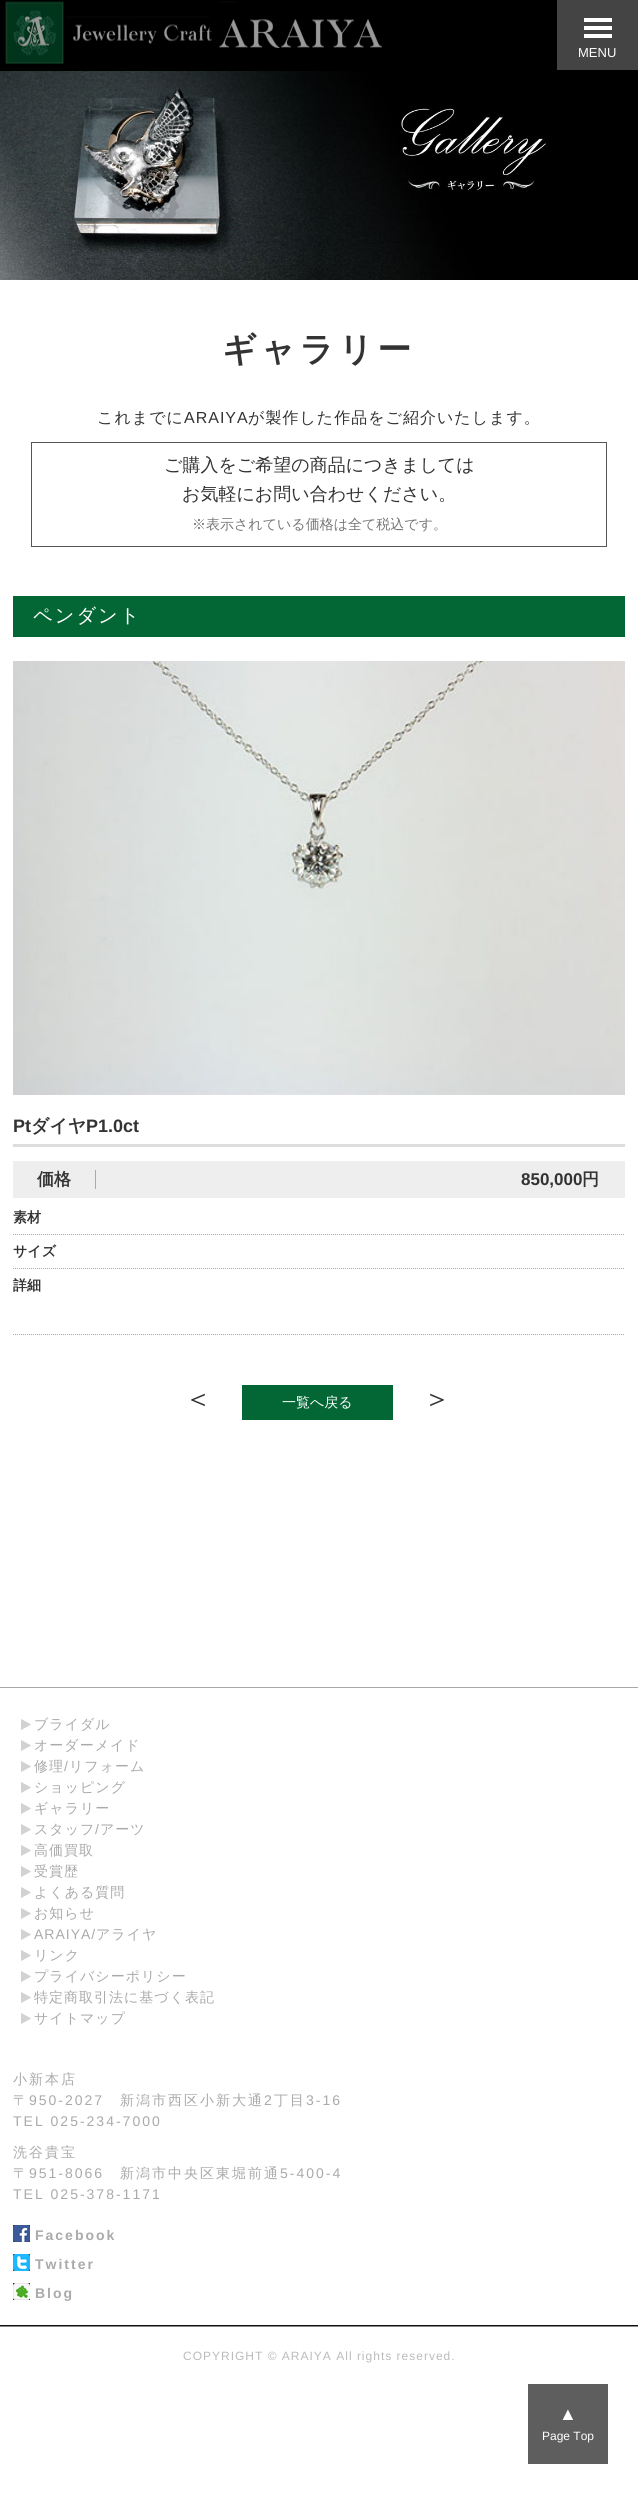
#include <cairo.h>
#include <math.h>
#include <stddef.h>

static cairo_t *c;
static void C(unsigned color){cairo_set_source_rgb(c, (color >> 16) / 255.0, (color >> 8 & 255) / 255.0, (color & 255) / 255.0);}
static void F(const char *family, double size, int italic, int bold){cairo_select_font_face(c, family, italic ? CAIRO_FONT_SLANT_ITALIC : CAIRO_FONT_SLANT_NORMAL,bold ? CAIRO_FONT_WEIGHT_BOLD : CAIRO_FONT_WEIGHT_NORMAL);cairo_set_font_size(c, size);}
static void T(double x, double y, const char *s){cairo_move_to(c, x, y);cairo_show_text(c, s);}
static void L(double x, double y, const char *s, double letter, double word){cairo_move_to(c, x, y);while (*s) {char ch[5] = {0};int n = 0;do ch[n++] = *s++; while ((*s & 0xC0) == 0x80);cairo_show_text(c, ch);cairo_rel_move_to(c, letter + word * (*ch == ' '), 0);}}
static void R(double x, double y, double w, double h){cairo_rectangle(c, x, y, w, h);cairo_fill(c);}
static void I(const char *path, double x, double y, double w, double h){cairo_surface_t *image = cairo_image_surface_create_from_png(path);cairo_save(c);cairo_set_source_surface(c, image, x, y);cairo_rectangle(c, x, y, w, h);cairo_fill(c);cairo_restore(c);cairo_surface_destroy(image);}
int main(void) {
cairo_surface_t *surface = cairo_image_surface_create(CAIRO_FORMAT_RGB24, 638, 2494);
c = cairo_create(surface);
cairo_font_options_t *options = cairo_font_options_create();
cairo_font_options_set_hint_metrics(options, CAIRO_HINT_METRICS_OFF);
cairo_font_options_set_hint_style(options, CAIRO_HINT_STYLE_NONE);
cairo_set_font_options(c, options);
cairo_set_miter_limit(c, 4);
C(0xffffff);
cairo_paint(c);
I("2.png",0,70,638,210);
C(0x000000);
R(0,0,408,71);
I("1.png",5,1,377,63);
R(408,0,149,70);
C(0x444444);
R(557,0,81,70);
C(0xffffff);
R(584,18,28,4);
R(584,26,28,4);
R(584,34,28,4);
F("Liberation Sans",13,0,0);
T(578,57,"MENU");
F("WenQuanYi Zen Hei",34,0,1);
C(0x333333);
L(222,361,"ギャラリー",4,0);
F("WenQuanYi Zen Hei Medium",16,0,0);
L(97,423,"これまでに",1,0);
F("Liberation Sans",16,0,0);
L(184,423,"ARAIYA",1,0);
F("WenQuanYi Zen Hei Medium",16,0,0);
L(248,423,"が製作した作品をご紹介いたします。",1,0);
cairo_rectangle(c,31.5,442.5,575,104);
C(0x555555);
cairo_set_line_width(c,1);
cairo_stroke(c);
F("WenQuanYi Zen Hei Medium",18,0,0);
C(0x333333);
T(164,471,"ご購入をご希望の商品につきましては");
T(182,500,"お気軽にお問い合わせください。");
F("WenQuanYi Zen Hei Medium",14,0,0);
C(0x777777);
T(192,529,"※表示されている価格は全て税込です。");
C(0x036735);
R(13,596,612,41);
F("WenQuanYi Zen Hei Medium",19.25,0,0);
C(0xffffff);
L(33,622,"ペンダント",2,0);
I("3.png",13,661,612,434);
C(0xdddddd);
R(13,1144,612,3);
F("Liberation Sans",18,0,1);
C(0x333333);
T(13,1132,"Pt");
F("WenQuanYi Zen Hei",18,0,1);
T(31,1132,"ダイヤ");
F("Liberation Sans",18,0,1);
T(86,1132,"P1.0ct");
C(0xeeeeee);
R(13,1161,612,37);
F("WenQuanYi Zen Hei",17,0,1);
C(0x333333);
T(37,1185,"価格");
C(0xaaaaaa);
R(95,1170,1,19);
F("Liberation Sans",17,0,1);
C(0x333333);
T(521,1185,"850,000");
F("WenQuanYi Zen Hei",17,0,1);
T(582,1185,"円");
cairo_new_path(c);
cairo_move_to(c,13,1234.5);
cairo_line_to(c,625,1234.5);
C(0xaaaaaa);
cairo_set_dash(c,(double[]){1,1},2,0);
cairo_stroke(c);
F("WenQuanYi Zen Hei",14,0,1);
C(0x333333);
T(13,1222,"素材");
cairo_new_path(c);
cairo_move_to(c,13,1268.5);
cairo_line_to(c,625,1268.5);
C(0xaaaaaa);
cairo_stroke(c);
C(0x333333);
T(13,1256,"サイズ");
T(13,1290,"詳細");
cairo_new_path(c);
cairo_move_to(c,13,1334.5);
cairo_line_to(c,625,1334.5);
C(0xaaaaaa);
cairo_stroke(c);
F("WenQuanYi Zen Hei Medium",28,0,0);
C(0x333333);
T(184,1408,"＜");
C(0x036735);
R(242,1385,151,35);
F("WenQuanYi Zen Hei Medium",14,0,0);
C(0xffffff);
T(282,1407,"一覧へ戻る");
F("WenQuanYi Zen Hei Medium",28,0,0);
C(0x333333);
T(423,1408,"＞");
C(0xaaaaaa);
R(0,1687,638,1);
C(0x111111);
R(0,2325,638,1);
I("4.png",21,1719,11,11);
F("WenQuanYi Zen Hei Medium",14,0,0);
C(0xaaaaaa);
L(34,1729,"ブライダル",1,0);
I("4.png",21,1740,11,11);
L(34,1750,"オーダーメイド",1,0);
I("4.png",21,1761,11,11);
L(34,1771,"修理",1,0);
F("Liberation Sans",14,0,0);
L(64,1771,"/",1,0);
F("WenQuanYi Zen Hei Medium",14,0,0);
L(69,1771,"リフォーム",1,0);
I("4.png",21,1782,11,11);
L(34,1792,"ショッピング",1,0);
I("4.png",21,1803,11,11);
L(34,1813,"ギャラリー",1,0);
I("4.png",21,1824,11,11);
L(34,1834,"スタッフ",1,0);
F("Liberation Sans",14,0,0);
L(95,1834,"/",1,0);
F("WenQuanYi Zen Hei Medium",14,0,0);
L(100,1834,"アーツ",1,0);
I("4.png",21,1845,11,11);
L(34,1855,"高価買取",1,0);
I("4.png",21,1866,11,11);
L(34,1876,"受賞歴",1,0);
I("4.png",21,1887,11,11);
L(34,1897,"よくある質問",1,0);
I("4.png",21,1908,11,11);
L(34,1918,"お知らせ",1,0);
I("4.png",21,1929,11,11);
F("Liberation Sans",14,0,0);
L(34,1939,"ARAIYA/",1,0);
F("WenQuanYi Zen Hei Medium",14,0,0);
L(96,1939,"アライヤ",1,0);
I("4.png",21,1950,11,11);
L(34,1960,"リンク",1,0);
I("4.png",21,1971,11,11);
L(34,1981,"プライバシーポリシー",1,0);
I("4.png",21,1992,11,11);
L(34,2002,"特定商取引法に基づく表記",1,0);
I("4.png",21,2013,11,11);
L(34,2023,"サイトマップ",1,0);
L(13,2084,"小新本店",2,0);
L(13,2105,"〒",2,0);
F("Liberation Sans",14,0,0);
L(29,2105,"950-2027",2,0);
F("WenQuanYi Zen Hei Medium",14,0,0);
L(120,2105,"新潟市西区小新大通",2,0);
F("Liberation Sans",14,0,0);
L(264,2105,"2",2,0);
F("WenQuanYi Zen Hei Medium",14,0,0);
L(274,2105,"丁目",2,0);
F("Liberation Sans",14,0,0);
L(306,2105,"3-16",2,0);
L(13,2126,"TEL 025-234-7000",2,0);
F("WenQuanYi Zen Hei Medium",14,0,0);
L(13,2157,"洗谷貴宝",2,0);
L(13,2178,"〒",2,0);
F("Liberation Sans",14,0,0);
L(29,2178,"951-8066",2,0);
F("WenQuanYi Zen Hei Medium",14,0,0);
L(120,2178,"新潟市中央区東堀前通",2,0);
F("Liberation Sans",14,0,0);
L(280,2178,"5-400-4",2,0);
L(13,2199,"TEL 025-378-1171",2,0);
I("5.png",13,2225,17,17);
F("Liberation Sans",14,0,1);
L(35,2240,"Facebook",2,0);
I("6.png",13,2254,17,17);
L(35,2269,"Twitter",2,0);
I("7.png",13,2283,17,17);
L(35,2298,"Blog",2,0);
C(0x888888);
R(0,2326,638,1);
F("Liberation Sans",12,0,0);
C(0xbbbbbb);
L(183,2360,"COPYRIGHT © ARAIYA All rights reserved.",1,0);
C(0x5e5e5e);
R(528,2384,80,80);
F("Liberation Sans",18,0,0);
C(0xffffff);
T(559,2420,"▲");
F("Liberation Sans",12,0,0);
T(542,2440,"Page Top");
cairo_surface_write_to_png(surface, "o.png");
cairo_font_options_destroy(options);
cairo_destroy(c);
cairo_surface_destroy(surface);
return 0;
}
